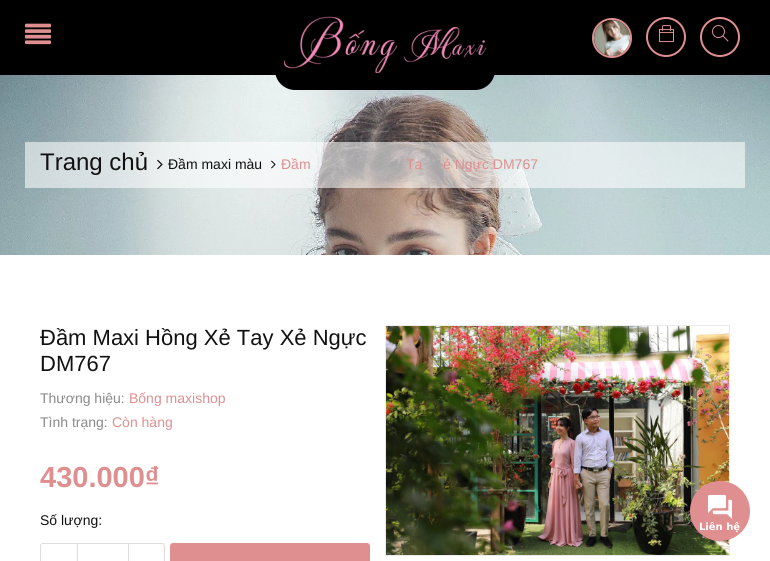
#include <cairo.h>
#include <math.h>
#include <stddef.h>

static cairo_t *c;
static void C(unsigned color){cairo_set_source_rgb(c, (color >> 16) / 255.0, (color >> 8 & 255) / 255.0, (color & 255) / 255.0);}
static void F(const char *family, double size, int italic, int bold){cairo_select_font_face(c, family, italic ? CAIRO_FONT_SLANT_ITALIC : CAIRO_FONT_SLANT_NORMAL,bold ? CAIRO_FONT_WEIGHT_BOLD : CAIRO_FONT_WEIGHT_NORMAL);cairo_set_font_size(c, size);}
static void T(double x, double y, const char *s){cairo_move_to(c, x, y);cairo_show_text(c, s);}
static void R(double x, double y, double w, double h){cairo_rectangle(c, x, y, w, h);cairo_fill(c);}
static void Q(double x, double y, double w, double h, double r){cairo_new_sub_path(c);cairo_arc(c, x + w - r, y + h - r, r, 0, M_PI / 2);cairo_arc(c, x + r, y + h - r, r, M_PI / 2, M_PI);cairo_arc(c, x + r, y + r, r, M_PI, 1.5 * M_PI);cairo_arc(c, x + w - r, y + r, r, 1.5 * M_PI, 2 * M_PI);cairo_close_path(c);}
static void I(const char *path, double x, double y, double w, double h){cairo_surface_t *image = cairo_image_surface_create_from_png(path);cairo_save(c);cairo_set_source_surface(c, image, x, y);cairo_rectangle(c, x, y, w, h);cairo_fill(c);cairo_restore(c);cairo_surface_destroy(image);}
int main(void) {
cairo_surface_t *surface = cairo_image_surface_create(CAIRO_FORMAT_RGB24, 770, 561);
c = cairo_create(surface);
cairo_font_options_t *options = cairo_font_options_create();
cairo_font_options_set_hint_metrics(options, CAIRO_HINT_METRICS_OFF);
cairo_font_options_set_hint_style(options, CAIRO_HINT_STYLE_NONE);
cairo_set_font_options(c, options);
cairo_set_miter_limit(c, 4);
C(0xffffff);
cairo_paint(c);
C(0x000000);
R(0,0,770,75);
I("1.png",25,23,26,22);
I("6.png",0,75,770,180);
cairo_new_path(c);
cairo_move_to(c,275,0);
cairo_line_to(c,495,0);
cairo_line_to(c,495,70);
cairo_curve_to(c,495,81,486,90,475,90);
cairo_line_to(c,295,90);
cairo_curve_to(c,284,90,275,81,275,70);
cairo_close_path(c);
cairo_fill(c);
I("2.png",284,16,202,57);
cairo_arc(c,612,38,19,0,2 * M_PI);
C(0xdf8f90);
cairo_stroke(c);
I("3.png",594,20,36,36);
cairo_arc(c,666,37,19,0,2 * M_PI);
cairo_stroke(c);
I("4.png",659,25,15,18);
cairo_arc(c,720,37,19,0,2 * M_PI);
cairo_stroke(c);
I("5.png",712,25,17,17);
cairo_set_source_rgba(c,0.996,0.996,0.996,0.57);
R(25,142,720,46);
F("Liberation Sans",24,0,0);
C(0x111111);
T(40,170,"Trang chủ");
I("7.png",157,159,6,11);
F("Liberation Sans",14,0,0);
T(168,169,"Đầm maxi màu");
I("8.png",271,160,5,9);
C(0xdf8f90);
T(281,169,"Đầm");
T(406,169,"Ta");
T(443,169,"ẻ Ngực DM767");
F("Liberation Sans",22,0,0);
C(0x111111);
T(40,345,"Đầm Maxi Hồng Xẻ Tay Xẻ Ngực");
T(40,371,"DM767");
F("Liberation Sans",14,0,0);
C(0x898989);
T(40,403,"Thương hiệu:");
C(0xdf8f90);
T(129,403,"Bống maxishop");
C(0x898989);
T(40,427,"Tình trạng:");
C(0xdf8f90);
T(112,427,"Còn hàng");
F("Liberation Sans",29,0,1);
T(40,487,"430.000₫");
F("Liberation Sans",14,0,0);
C(0x111111);
T(40,525,"Số lượng:");
cairo_new_path(c);
cairo_move_to(c,43,543.5);
cairo_line_to(c,77.5,543.5);
cairo_line_to(c,77.5,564.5);
cairo_line_to(c,43,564.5);
cairo_curve_to(c,41.5,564.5,40.5,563.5,40.5,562);
cairo_line_to(c,40.5,546);
cairo_curve_to(c,40.5,544.5,41.5,543.5,43,543.5);
cairo_close_path(c);
C(0xdddddd);
cairo_set_line_width(c,1);
cairo_stroke(c);
R(78,543,50,1);
cairo_new_path(c);
cairo_move_to(c,128.5,543.5);
cairo_line_to(c,162,543.5);
cairo_curve_to(c,163.5,543.5,164.5,544.5,164.5,546);
cairo_line_to(c,164.5,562);
cairo_curve_to(c,164.5,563.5,163.5,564.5,162,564.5);
cairo_line_to(c,128.5,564.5);
cairo_close_path(c);
cairo_stroke(c);
C(0xdf8f90);
Q(170.5,543.5,199,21,2.5);
cairo_fill_preserve(c);
cairo_stroke(c);
cairo_rectangle(c,385.5,325.5,344,230);
C(0xebebeb);
cairo_stroke(c);
I("9.png",386,326,343,229);
C(0xdf8f90);
cairo_arc(c,720,511,30,0,2 * M_PI);
cairo_fill(c);
I("10.png",708,495,24,24);
F("DejaVu Sans",10,0,1);
C(0xffffff);
T(699,530,"Liên hệ");
cairo_surface_write_to_png(surface, "o.png");
cairo_font_options_destroy(options);
cairo_destroy(c);
cairo_surface_destroy(surface);
return 0;
}
